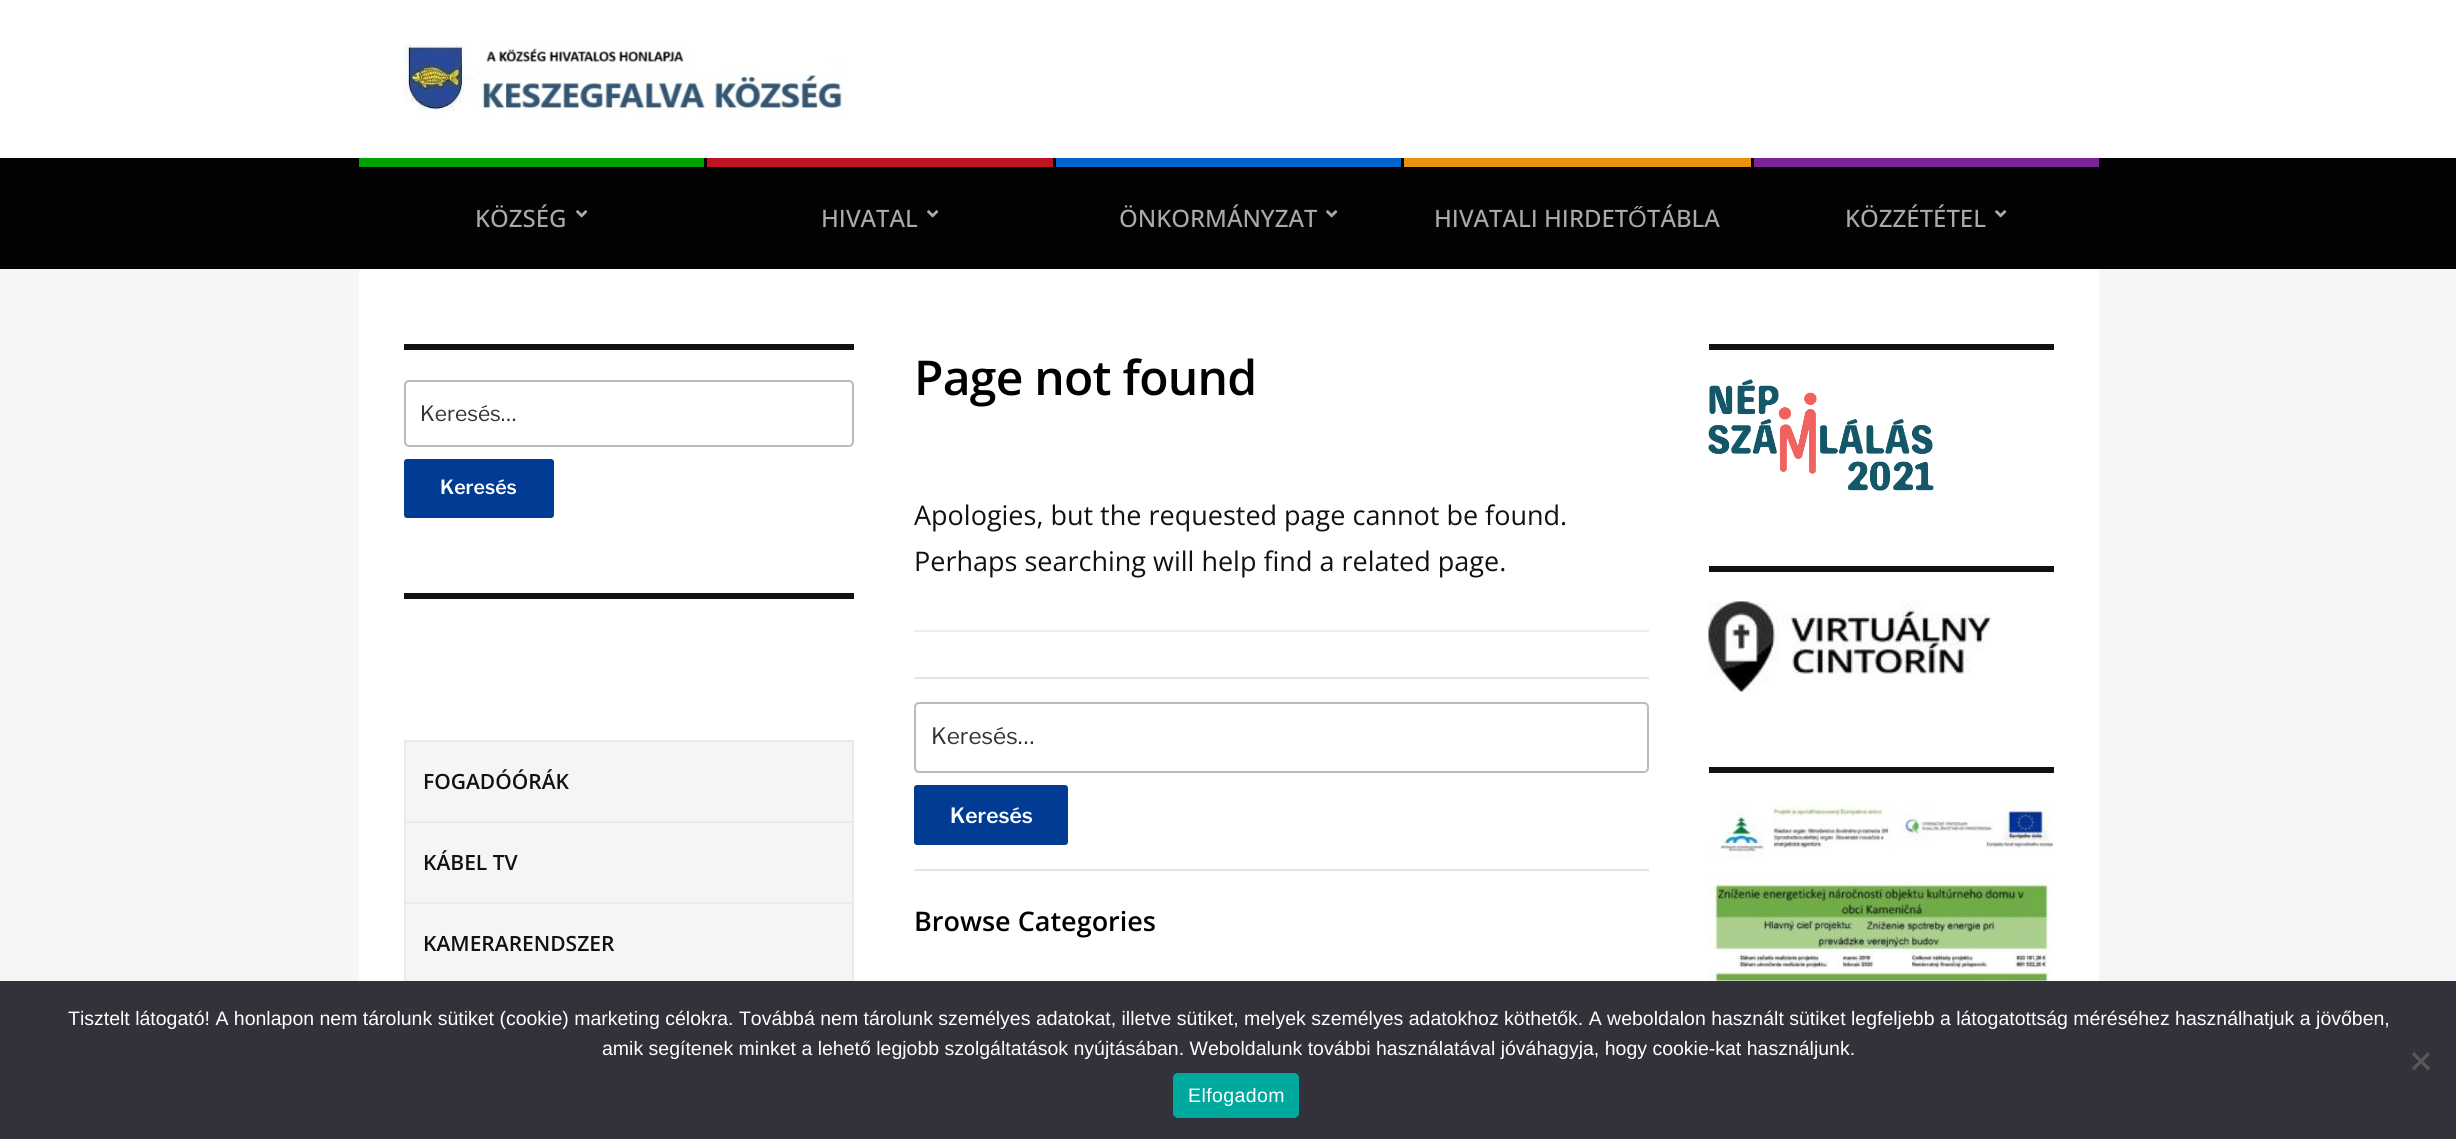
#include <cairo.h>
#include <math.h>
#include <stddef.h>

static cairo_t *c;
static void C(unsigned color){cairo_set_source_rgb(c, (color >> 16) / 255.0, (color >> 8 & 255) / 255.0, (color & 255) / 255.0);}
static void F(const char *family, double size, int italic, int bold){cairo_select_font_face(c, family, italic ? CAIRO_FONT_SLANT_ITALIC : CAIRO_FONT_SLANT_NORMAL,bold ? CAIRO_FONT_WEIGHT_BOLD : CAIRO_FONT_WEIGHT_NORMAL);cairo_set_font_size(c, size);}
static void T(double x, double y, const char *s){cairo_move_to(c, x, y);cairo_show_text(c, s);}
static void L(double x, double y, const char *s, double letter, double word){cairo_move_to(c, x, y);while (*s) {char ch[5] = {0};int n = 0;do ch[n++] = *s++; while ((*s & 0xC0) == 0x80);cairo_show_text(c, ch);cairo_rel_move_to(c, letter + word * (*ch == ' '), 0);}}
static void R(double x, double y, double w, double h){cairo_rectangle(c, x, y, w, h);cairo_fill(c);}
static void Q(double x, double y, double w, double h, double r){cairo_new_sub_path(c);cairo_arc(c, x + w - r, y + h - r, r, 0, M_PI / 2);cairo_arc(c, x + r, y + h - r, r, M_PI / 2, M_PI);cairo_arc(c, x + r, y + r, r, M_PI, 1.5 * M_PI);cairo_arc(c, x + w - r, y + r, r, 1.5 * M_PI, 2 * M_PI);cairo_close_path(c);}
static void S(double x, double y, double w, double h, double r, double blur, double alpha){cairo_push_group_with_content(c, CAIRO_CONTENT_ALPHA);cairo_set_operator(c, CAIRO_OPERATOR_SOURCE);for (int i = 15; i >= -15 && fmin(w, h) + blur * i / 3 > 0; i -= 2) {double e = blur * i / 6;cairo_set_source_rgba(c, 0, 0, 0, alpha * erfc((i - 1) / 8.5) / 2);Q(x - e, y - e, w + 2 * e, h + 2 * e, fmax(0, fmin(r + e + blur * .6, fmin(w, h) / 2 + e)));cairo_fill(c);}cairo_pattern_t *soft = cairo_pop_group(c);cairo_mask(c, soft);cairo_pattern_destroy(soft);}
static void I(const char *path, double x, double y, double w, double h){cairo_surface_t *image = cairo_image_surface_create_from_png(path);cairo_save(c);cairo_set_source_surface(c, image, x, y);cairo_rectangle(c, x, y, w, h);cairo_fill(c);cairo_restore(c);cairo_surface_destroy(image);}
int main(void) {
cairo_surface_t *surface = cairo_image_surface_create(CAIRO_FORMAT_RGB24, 2456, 1139);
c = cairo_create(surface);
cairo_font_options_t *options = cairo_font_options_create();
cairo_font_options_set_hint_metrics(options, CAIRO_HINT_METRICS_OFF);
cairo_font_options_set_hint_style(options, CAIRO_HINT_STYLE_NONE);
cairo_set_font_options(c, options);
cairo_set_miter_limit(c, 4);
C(0xf4f6f8);
cairo_paint(c);
C(0xffffff);
R(0,0,2456,158);
C(0x020202);
R(0,158,2456,111);
cairo_save(c);
cairo_set_fill_rule(c,CAIRO_FILL_RULE_EVEN_ODD);
cairo_new_path(c);
cairo_move_to(c,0,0);
cairo_line_to(c,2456,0);
cairo_line_to(c,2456,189);
cairo_line_to(c,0,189);
cairo_close_path(c);
cairo_move_to(c,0,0);
cairo_line_to(c,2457,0);
cairo_line_to(c,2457,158);
cairo_line_to(c,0,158);
cairo_close_path(c);
cairo_clip(c);
C(0x000000);
S(0,8,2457,157,0,7.5,.1);
cairo_restore(c);
I("1.png",403,45,440,68);
C(0x00a000);
R(359,158,345,9);
F("Open Sans Medium",24,0,0);
C(0xaaaaaa);
T(475,227,"KÖZSÉG");
I("2.png",576,210,12,8);
C(0xbf1522);
R(707,158,346,9);
C(0xaaaaaa);
T(821,227,"HIVATAL");
I("2.png",927,210,12,8);
C(0x0066cc);
R(1056,158,345,9);
C(0xaaaaaa);
T(1119,227,"ÖNKORMÁNYZAT");
I("2.png",1326,210,12,8);
C(0xec900f);
R(1404,158,347,9);
C(0xaaaaaa);
T(1434,227,"HIVATALI HIRDET");
F("Liberation Sans",24,0,0);
T(1628,227,"Ő");
F("Open Sans Medium",24,0,0);
T(1647,227,"TÁBLA");
C(0x7b2398);
R(1754,158,345,9);
C(0xaaaaaa);
T(1845,227,"KÖZZÉTÉTEL");
I("2.png",1995,210,12,8);
C(0xffffff);
R(359,269,1740,712);
C(0x111111);
R(404,344,450,6);
Q(405,381,448,65,4);
C(0xbbbbbb);
cairo_stroke(c);
F("Libre Franklin",21,0,0);
C(0x333333);
T(420,421,"Keresés…");
C(0x013b93);
Q(404,459,150,59,3);
cairo_fill(c);
F("Libre Franklin SemiBold",19.5,0,0);
C(0xffffff);
T(440,494,"Keresés");
C(0x111111);
R(404,593,450,6);
C(0xf5f5f5);
R(406,742,446,79);
C(0xeaeaea);
R(404,740,450,2);
R(852,740,2,81);
R(404,740,2,81);
F("Open Sans SemiBold",21,0,0);
C(0x111111);
T(423,789,"FOGADÓÓRÁK");
C(0xf5f5f5);
R(406,823,446,79);
C(0xeaeaea);
R(404,821,450,2);
R(852,821,2,81);
R(404,821,2,81);
C(0x111111);
T(423,870,"KÁBEL TV");
C(0xf5f5f5);
R(406,904,446,77);
C(0xeaeaea);
R(404,902,450,2);
R(852,902,2,81);
R(404,902,2,81);
C(0x111111);
T(423,951,"KAMERARENDSZER");
F("Open Sans SemiBold",48,0,0);
C(0x000000);
L(914,395,"Page not found",-.75,0);
C(0xeeeeee);
R(914,630,735,2);
F("Open Sans",27,0,0);
C(0x111111);
T(914,525,"Apologies, but the requested page cannot be found.");
T(914,571,"Perhaps searching will help find a related page.");
C(0xe3e3e3);
R(914,677,735,2);
Q(915,703,733,69,4);
C(0xbbbbbb);
cairo_stroke(c);
F("Libre Franklin",22.5,0,0);
C(0x333333);
T(931,744,"Keresés…");
C(0x013b93);
Q(914,785,154,60,3);
cairo_fill(c);
F("Libre Franklin SemiBold",21,0,0);
C(0xffffff);
T(950,823,"Keresés");
C(0xe3e3e3);
R(914,869,735,2);
F("Open Sans SemiBold",27,0,0);
C(0x000000);
T(914,931,"Browse Categories");
C(0x111111);
R(1709,344,345,6);
I("3.png",1708,379,226,112);
R(1709,566,345,6);
I("4.png",1708,601,283,91);
R(1709,767,345,6);
I("5.png",1708,802,346,179);
C(0x32323a);
R(0,981,2456,158);
F("Liberation Sans",19.5,0,0);
C(0xffffff);
T(68,1025,"Tisztelt látogató! A honlapon nem tárolunk sütiket (cookie) marketing célokra. Továbbá nem tárolunk személyes adatokat, illetve sütiket, melyek személyes adatokhoz köthetők. A weboldalon használt sütiket legfeljebb a látogatottság méréséhez használhatjuk a jövőben,");
T(602,1055,"amik segítenek minket a lehető legjobb szolgáltatások nyújtásában. Weboldalunk további használatával jóváhagyja, hogy cookie-kat használjunk.");
C(0x59595d);
cairo_new_path(c);
cairo_move_to(c,2428,1052);
cairo_line_to(c,2430,1054.5);
cairo_line_to(c,2414,1070.5);
cairo_line_to(c,2412,1068);
cairo_close_path(c);
cairo_fill(c);
cairo_new_path(c);
cairo_move_to(c,2412,1054.5);
cairo_line_to(c,2414,1052);
cairo_line_to(c,2430,1068);
cairo_line_to(c,2428,1070.5);
cairo_close_path(c);
cairo_fill(c);
C(0x00a99d);
Q(1173,1073,126,45,5);
cairo_fill(c);
C(0xffffff);
L(1188,1102,"Elfogadom",.4,0);
cairo_surface_write_to_png(surface, "o.png");
cairo_font_options_destroy(options);
cairo_destroy(c);
cairo_surface_destroy(surface);
return 0;
}
